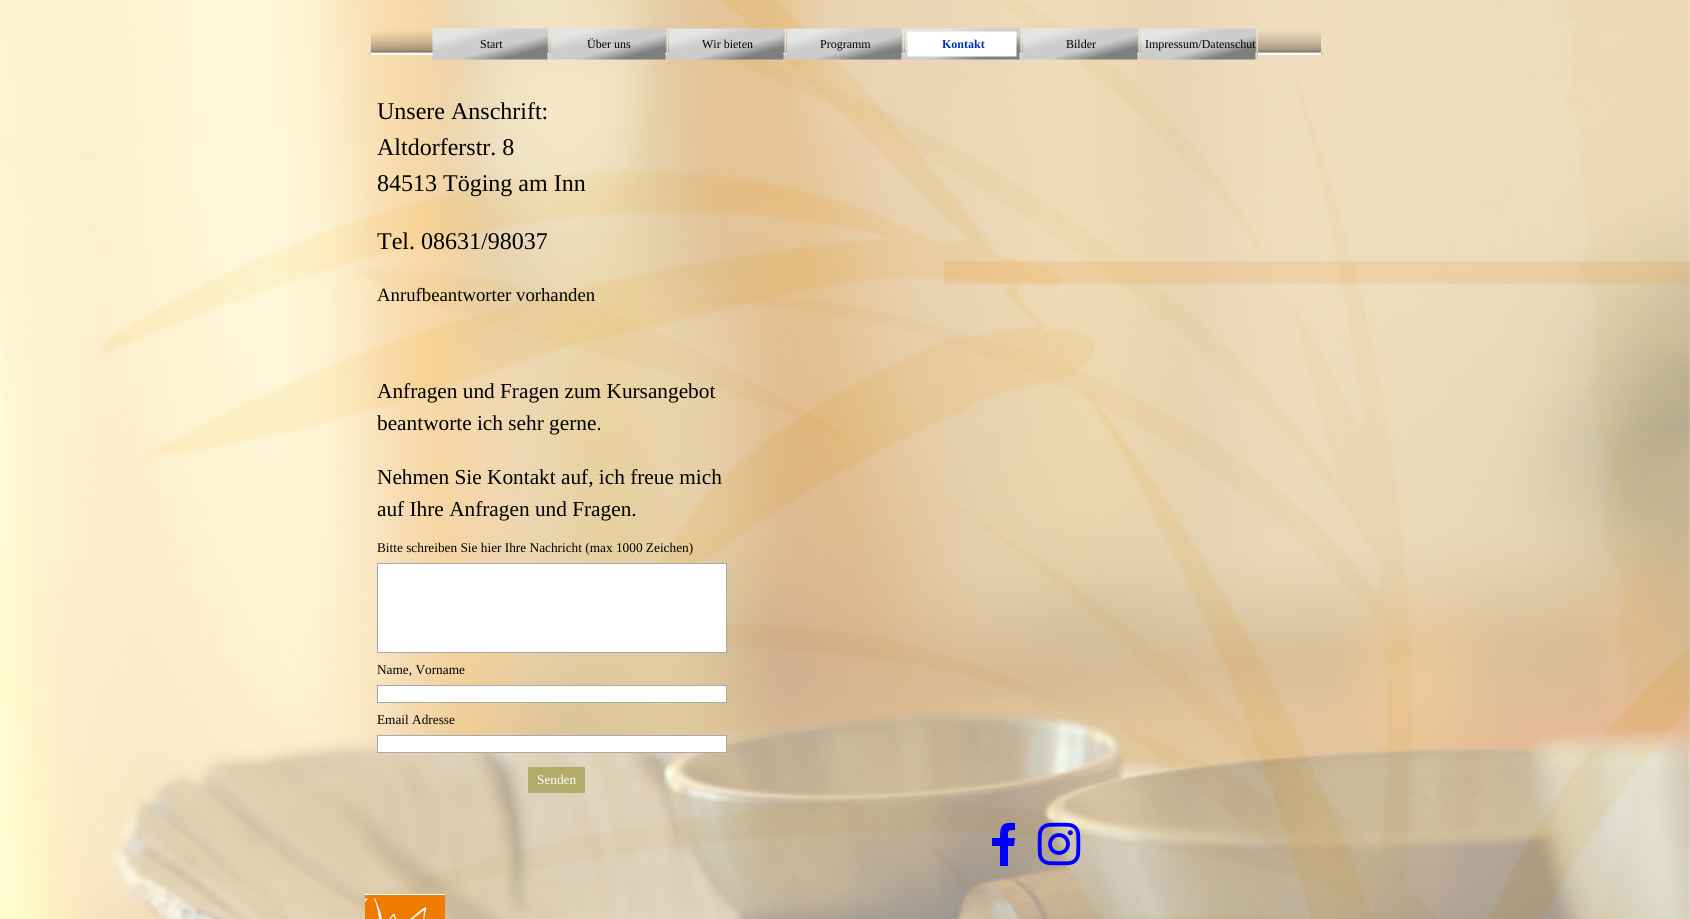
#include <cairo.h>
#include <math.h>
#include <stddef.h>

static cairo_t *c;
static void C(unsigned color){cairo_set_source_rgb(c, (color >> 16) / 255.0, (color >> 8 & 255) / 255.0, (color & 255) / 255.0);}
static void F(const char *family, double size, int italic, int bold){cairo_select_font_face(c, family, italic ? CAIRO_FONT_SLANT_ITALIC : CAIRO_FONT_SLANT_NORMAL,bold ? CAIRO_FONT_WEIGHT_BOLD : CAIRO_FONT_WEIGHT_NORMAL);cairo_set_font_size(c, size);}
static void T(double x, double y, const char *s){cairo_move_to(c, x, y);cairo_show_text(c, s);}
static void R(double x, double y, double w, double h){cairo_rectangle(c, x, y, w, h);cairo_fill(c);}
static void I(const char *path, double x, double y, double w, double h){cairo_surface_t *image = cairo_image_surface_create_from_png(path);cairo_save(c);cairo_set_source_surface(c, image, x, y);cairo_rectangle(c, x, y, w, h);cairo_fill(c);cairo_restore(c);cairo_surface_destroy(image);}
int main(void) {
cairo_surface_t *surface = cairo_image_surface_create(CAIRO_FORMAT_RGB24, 1690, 919);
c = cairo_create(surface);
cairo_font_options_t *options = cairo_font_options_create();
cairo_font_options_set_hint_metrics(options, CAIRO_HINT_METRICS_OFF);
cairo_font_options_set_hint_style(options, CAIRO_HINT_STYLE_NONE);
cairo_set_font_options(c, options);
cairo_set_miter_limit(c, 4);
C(0xffffff);
cairo_paint(c);
I("1.png",0,0,1690,919);
I("2.png",368,31,956,24);
I("3.png",432,28,118,32);
F("Liberation Serif",12,0,0);
C(0x000000);
T(480,48,"Start");
I("4.png",550,28,118,32);
T(587,48,"Über uns");
I("5.png",668,28,118,32);
T(702,48,"Wir bieten");
I("6.png",786,28,118,32);
T(820,48,"Programm");
I("7.png",904,28,118,32);
F("Liberation Serif",12,0,1);
C(0x0030bf);
T(942,48,"Kontakt");
I("8.png",1022,28,118,32);
F("Liberation Serif",12,0,0);
C(0x000000);
T(1066,48,"Bilder");
I("9.png",1140,28,118,32);
T(1145,48,"Impressum/Datenschut");
F("Liberation Serif",24,0,0);
T(377,119,"Unsere Anschrift:");
T(377,155,"Altdorferstr. 8");
T(377,191,"84513 Töging am Inn");
T(377,249,"Tel. 08631/98037");
F("Liberation Serif",18.75,0,0);
T(377,301,"Anrufbeantworter vorhanden");
F("Liberation Serif",21.3,0,0);
T(377,398,"Anfragen und Fragen zum Kursangebot");
T(377,430,"beantworte ich sehr gerne.");
T(377,484,"Nehmen Sie Kontakt auf, ich freue mich");
T(377,516,"auf Ihre Anfragen und Fragen.");
F("Liberation Serif",13.3,0,0);
T(377,552,"Bitte schreiben Sie hier Ihre Nachricht (max 1000 Zeichen)");
C(0xffffff);
cairo_rectangle(c,377.5,563.5,349,89);
cairo_fill_preserve(c);
C(0xa9a9a9);
cairo_set_line_width(c,1);
cairo_stroke(c);
C(0x000000);
T(377,674,"Name, Vorname");
C(0xffffff);
cairo_rectangle(c,377.5,685.5,349,17);
cairo_fill_preserve(c);
C(0xa9a9a9);
cairo_stroke(c);
C(0x000000);
T(377,724,"Email Adresse");
C(0xffffff);
cairo_rectangle(c,377.5,735.5,349,17);
cairo_fill_preserve(c);
C(0xa9a9a9);
cairo_stroke(c);
C(0xb2aa6b);
R(528,767,57,26);
C(0xffffff);
T(537,784,"Senden");
C(0x0000ff);
cairo_new_path(c);
cairo_move_to(c,1008,866);
cairo_line_to(c,1008,846);
cairo_line_to(c,1014,846);
cairo_line_to(c,1015,838);
cairo_line_to(c,1008,838);
cairo_curve_to(c,1008,831,1007,830,1015,830);
cairo_line_to(c,1015,823);
cairo_curve_to(c,1002,822,1000,825,1000,838);
cairo_line_to(c,992,838);
cairo_line_to(c,992,846);
cairo_line_to(c,1000,846);
cairo_line_to(c,1000,866);
cairo_close_path(c);
cairo_fill(c);
I("10.png",1037,822,44,44);
I("11.png",365,894,80,25);
cairo_surface_write_to_png(surface, "o.png");
cairo_font_options_destroy(options);
cairo_destroy(c);
cairo_surface_destroy(surface);
return 0;
}
